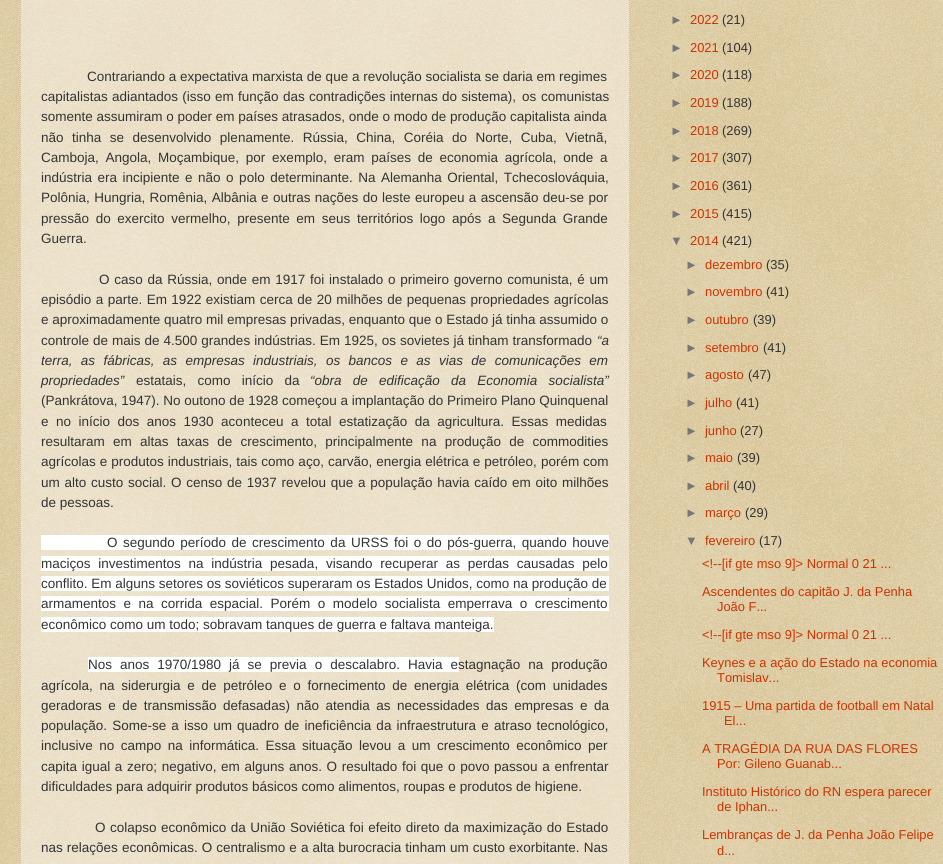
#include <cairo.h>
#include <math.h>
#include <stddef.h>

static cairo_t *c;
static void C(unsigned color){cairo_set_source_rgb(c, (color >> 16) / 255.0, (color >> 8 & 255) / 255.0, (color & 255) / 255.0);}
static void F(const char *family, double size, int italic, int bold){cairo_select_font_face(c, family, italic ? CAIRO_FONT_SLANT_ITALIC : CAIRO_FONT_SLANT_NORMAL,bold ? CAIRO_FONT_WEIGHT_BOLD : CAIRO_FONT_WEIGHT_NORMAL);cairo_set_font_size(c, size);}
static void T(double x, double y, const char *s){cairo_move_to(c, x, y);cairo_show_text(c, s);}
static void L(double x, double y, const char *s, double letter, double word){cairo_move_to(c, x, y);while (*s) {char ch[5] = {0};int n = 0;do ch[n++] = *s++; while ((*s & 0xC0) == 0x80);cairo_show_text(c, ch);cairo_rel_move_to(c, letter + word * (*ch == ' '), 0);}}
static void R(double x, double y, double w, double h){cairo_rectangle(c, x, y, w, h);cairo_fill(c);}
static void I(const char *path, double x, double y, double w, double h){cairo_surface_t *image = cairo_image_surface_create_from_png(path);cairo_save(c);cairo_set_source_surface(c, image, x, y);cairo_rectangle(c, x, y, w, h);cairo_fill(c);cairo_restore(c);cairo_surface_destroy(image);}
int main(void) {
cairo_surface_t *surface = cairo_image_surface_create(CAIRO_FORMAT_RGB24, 943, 864);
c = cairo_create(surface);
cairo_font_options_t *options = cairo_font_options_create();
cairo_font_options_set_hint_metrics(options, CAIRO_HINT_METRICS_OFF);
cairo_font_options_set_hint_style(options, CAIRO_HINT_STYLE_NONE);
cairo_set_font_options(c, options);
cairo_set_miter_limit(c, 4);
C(0xc0a154);
cairo_paint(c);
I("1.png",0,0,943,864);
cairo_set_source_rgba(c,1,1,1,0.4);
R(20,0,610,864);
cairo_new_path(c);
cairo_move_to(c,629.5,-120);
cairo_line_to(c,629.5,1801);
C(0xccbb99);
cairo_set_line_width(c,1);
cairo_set_dash(c,(double[]){1,1},2,0);
cairo_stroke(c);
cairo_new_path(c);
cairo_move_to(c,20.5,-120);
cairo_line_to(c,20.5,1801);
cairo_stroke(c);
F("Liberation Sans",13.5,0,0);
C(0x333333);
T(87,81,"Contrariando a expectativa marxista de que a revolução socialista se daria em regimes");
L(41,101,"capitalistas adiantados (isso em função das contradições internas do sistema),",0,.5);
L(522,101,"os comunistas",0,1);
T(41,121,"somente assumiram o poder em países atrasados, onde o modo de produção capitalista ainda");
L(41,142,"não tinha se desenvolvido plenamente. Rússia, China, Coréia do Norte, Cuba, Vietnã,",0,4.75);
L(41,162,"Camboja, Angola, Moçambique, por exemplo, eram países de economia agrícola, onde a",0,3);
L(41,182,"indústria era incipiente e não o polo determinante. Na Alemanha Oriental, Tchecoslováquia,",0,1.75);
L(41,202,"Polônia, Hungria, Romênia, Albânia e outras nações do leste europeu a ascensão deu-se por",0,.6);
L(41,223,"pressão do exercito vermelho, presente em seus territórios logo após a Segunda Grande",0,2.9);
T(41,243,"Guerra.");
L(99,284,"O caso da Rússia, onde em 1917 foi instalado o primeiro governo comunista, é um",0,1);
L(41,304,"episódio a parte. Em 1922 existiam cerca de 20 milhões de pequenas propriedades agrícolas",0,.7);
T(41,324,"e aproximadamente quatro mil empresas privadas, enquanto que o Estado já tinha assumido o");
L(41,345,"controle de mais de 4.500 grandes indústrias. Em 1925, os sovietes já tinham transformado",0,.25);
F("Liberation Sans",13.5,1,0);
T(597,345,"“a");
L(41,365,"terra, as fábricas, as empresas industriais, os bancos e as vias de comunicações em",0,4.6);
T(41,385,"propriedades”");
F("Liberation Sans",13.5,0,0);
L(136,385,"estatais, como início da",0,7.5);
F("Liberation Sans",13.5,1,0);
L(310,385,"“obra de edificação da Economia socialista”",0,7.5);
F("Liberation Sans",13.5,0,0);
T(41,405,"(Pankrátova, 1947). No outono de 1928 começou a implantação do Primeiro Plano Quinquenal");
L(41,426,"e no início dos anos 1930 aconteceu a total estatização da agricultura. Essas medidas",0,3.75);
L(41,446,"resultaram em",0,4.5);
L(140,446,"altas taxas de crescimento, principalmente na produção de commodities",0,4.5);
L(41,466,"agrícolas e produtos industriais, tais como aço, carvão, energia elétrica e petróleo,",0,.25);
T(541,466,"porém com");
L(41,487,"um alto custo social. O censo de 1937 revelou que a população havia caído em oito milhões",0,1);
T(41,507,"de pessoas.");
C(0xffffff);
R(41,535,568,15);
C(0x333333);
L(107,547,"O segundo período de crescimento da URSS foi o do pós-guerra, quando houve",0,1.75);
C(0xffffff);
R(41,556,568,15);
C(0x333333);
L(41,568,"maciços investimentos na indústria pesada, visando recuperar as perdas causadas pelo",0,4);
C(0xffffff);
R(41,576,568,15);
C(0x333333);
T(41,588,"conflito. Em alguns setores os soviéticos superaram os Estados Unidos, como na produção de");
C(0xffffff);
R(41,596,568,15);
C(0x333333);
L(41,608,"armamentos e na corrida espacial. Porém o modelo socialista emperrava o crescimento",0,3.75);
C(0xffffff);
R(41,617,453,15);
C(0x333333);
T(41,629,"econômico como um todo; sobravam tanques de guerra e faltava manteiga.");
C(0xffffff);
R(88,657,371,15);
C(0x333333);
L(88,669,"Nos anos 1970/1980 já se previa o descalabro. Havia estagnação na produção",0,4.25);
L(41,690,"agrícola, na siderurgia e de petróleo e o fornecimento de energia elétrica (com unidades",0,3);
L(41,710,"geradoras e de transmissão defasadas) não atendia as necessidades das empresas e da",0,2.75);
L(41,730,"população. Some-se a isso um quadro de ineficiência da infraestrutura e atraso tecnológico,",0,1.4);
L(41,750,"inclusive no campo na informática. Essa situação levou a um crescimento econômico per",0,2.75);
L(41,771,"capita igual a zero; negativo, em alguns anos. O resultado foi que o povo passou a enfrentar",0,.9);
T(41,791,"dificuldades para adquirir produtos básicos como alimentos, roupas e produtos de higiene.");
L(95,832,"O colapso econômico da União Soviética foi efeito direto da maximização do Estado",0,.75);
L(41,852,"nas relações econômicas. O centralismo e a alta burocracia tinham um custo exorbitante. Nas",0,.3);
F("Liberation Sans",12.9,0,0);
C(0x777777);
T(670,24,"►");
C(0xcc3300);
T(690,24,"2022");
C(0x333333);
T(722,24,"(21)");
C(0x777777);
T(670,52,"►");
C(0xcc3300);
T(690,52,"2021");
C(0x333333);
T(722,52,"(104)");
C(0x777777);
T(670,79,"►");
C(0xcc3300);
T(690,79,"2020");
C(0x333333);
T(722,79,"(118)");
C(0x777777);
T(670,107,"►");
C(0xcc3300);
T(690,107,"2019");
C(0x333333);
T(722,107,"(188)");
C(0x777777);
T(670,135,"►");
C(0xcc3300);
T(690,135,"2018");
C(0x333333);
T(722,135,"(269)");
C(0x777777);
T(670,162,"►");
C(0xcc3300);
T(690,162,"2017");
C(0x333333);
T(722,162,"(307)");
C(0x777777);
T(670,190,"►");
C(0xcc3300);
T(690,190,"2016");
C(0x333333);
T(722,190,"(361)");
C(0x777777);
T(670,218,"►");
C(0xcc3300);
T(690,218,"2015");
C(0x333333);
T(722,218,"(415)");
C(0x777777);
T(670,245,"▼");
C(0xcc3300);
T(690,245,"2014");
C(0x333333);
T(722,245,"(421)");
C(0x777777);
T(685,269,"►");
C(0xcc3300);
T(705,269,"dezembro");
C(0x333333);
T(766,269,"(35)");
C(0x777777);
T(685,296,"►");
C(0xcc3300);
T(705,296,"novembro");
C(0x333333);
T(766,296,"(41)");
C(0x777777);
T(685,324,"►");
C(0xcc3300);
T(705,324,"outubro");
C(0x333333);
T(753,324,"(39)");
C(0x777777);
T(685,352,"►");
C(0xcc3300);
T(705,352,"setembro");
C(0x333333);
T(763,352,"(41)");
C(0x777777);
T(685,379,"►");
C(0xcc3300);
T(705,379,"agosto");
C(0x333333);
T(748,379,"(47)");
C(0x777777);
T(685,407,"►");
C(0xcc3300);
T(705,407,"julho");
C(0x333333);
T(736,407,"(41)");
C(0x777777);
T(685,435,"►");
C(0xcc3300);
T(705,435,"junho");
C(0x333333);
T(740,435,"(27)");
C(0x777777);
T(685,462,"►");
C(0xcc3300);
T(705,462,"maio");
C(0x333333);
T(737,462,"(39)");
C(0x777777);
T(685,490,"►");
C(0xcc3300);
T(705,490,"abril");
C(0x333333);
T(733,490,"(40)");
C(0x777777);
T(685,517,"►");
C(0xcc3300);
T(705,517,"março");
C(0x333333);
T(745,517,"(29)");
C(0x777777);
T(685,545,"▼");
C(0xcc3300);
T(705,545,"fevereiro");
C(0x333333);
T(759,545,"(17)");
C(0xcc3300);
T(702,568,"<!--[if gte mso 9]> Normal 0 21 ...");
T(702,596,"Ascendentes do capitão J. da Penha");
T(717,611,"João F...");
T(702,639,"<!--[if gte mso 9]> Normal 0 21 ...");
T(702,667,"Keynes e a ação do Estado na economia");
T(717,682,"Tomislav...");
T(702,710,"1915 – Uma partida de football em Natal");
T(724,725,"El...");
T(702,753,"A TRAGÉDIA DA RUA DAS FLORES");
T(717,768,"Por: Gileno Guanab...");
T(702,796,"Instituto Histórico do RN espera parecer");
T(717,811,"de Iphan...");
T(702,839,"Lembranças de J. da Penha João Felipe");
T(717,855,"d...");
cairo_surface_write_to_png(surface, "o.png");
cairo_font_options_destroy(options);
cairo_destroy(c);
cairo_surface_destroy(surface);
return 0;
}
